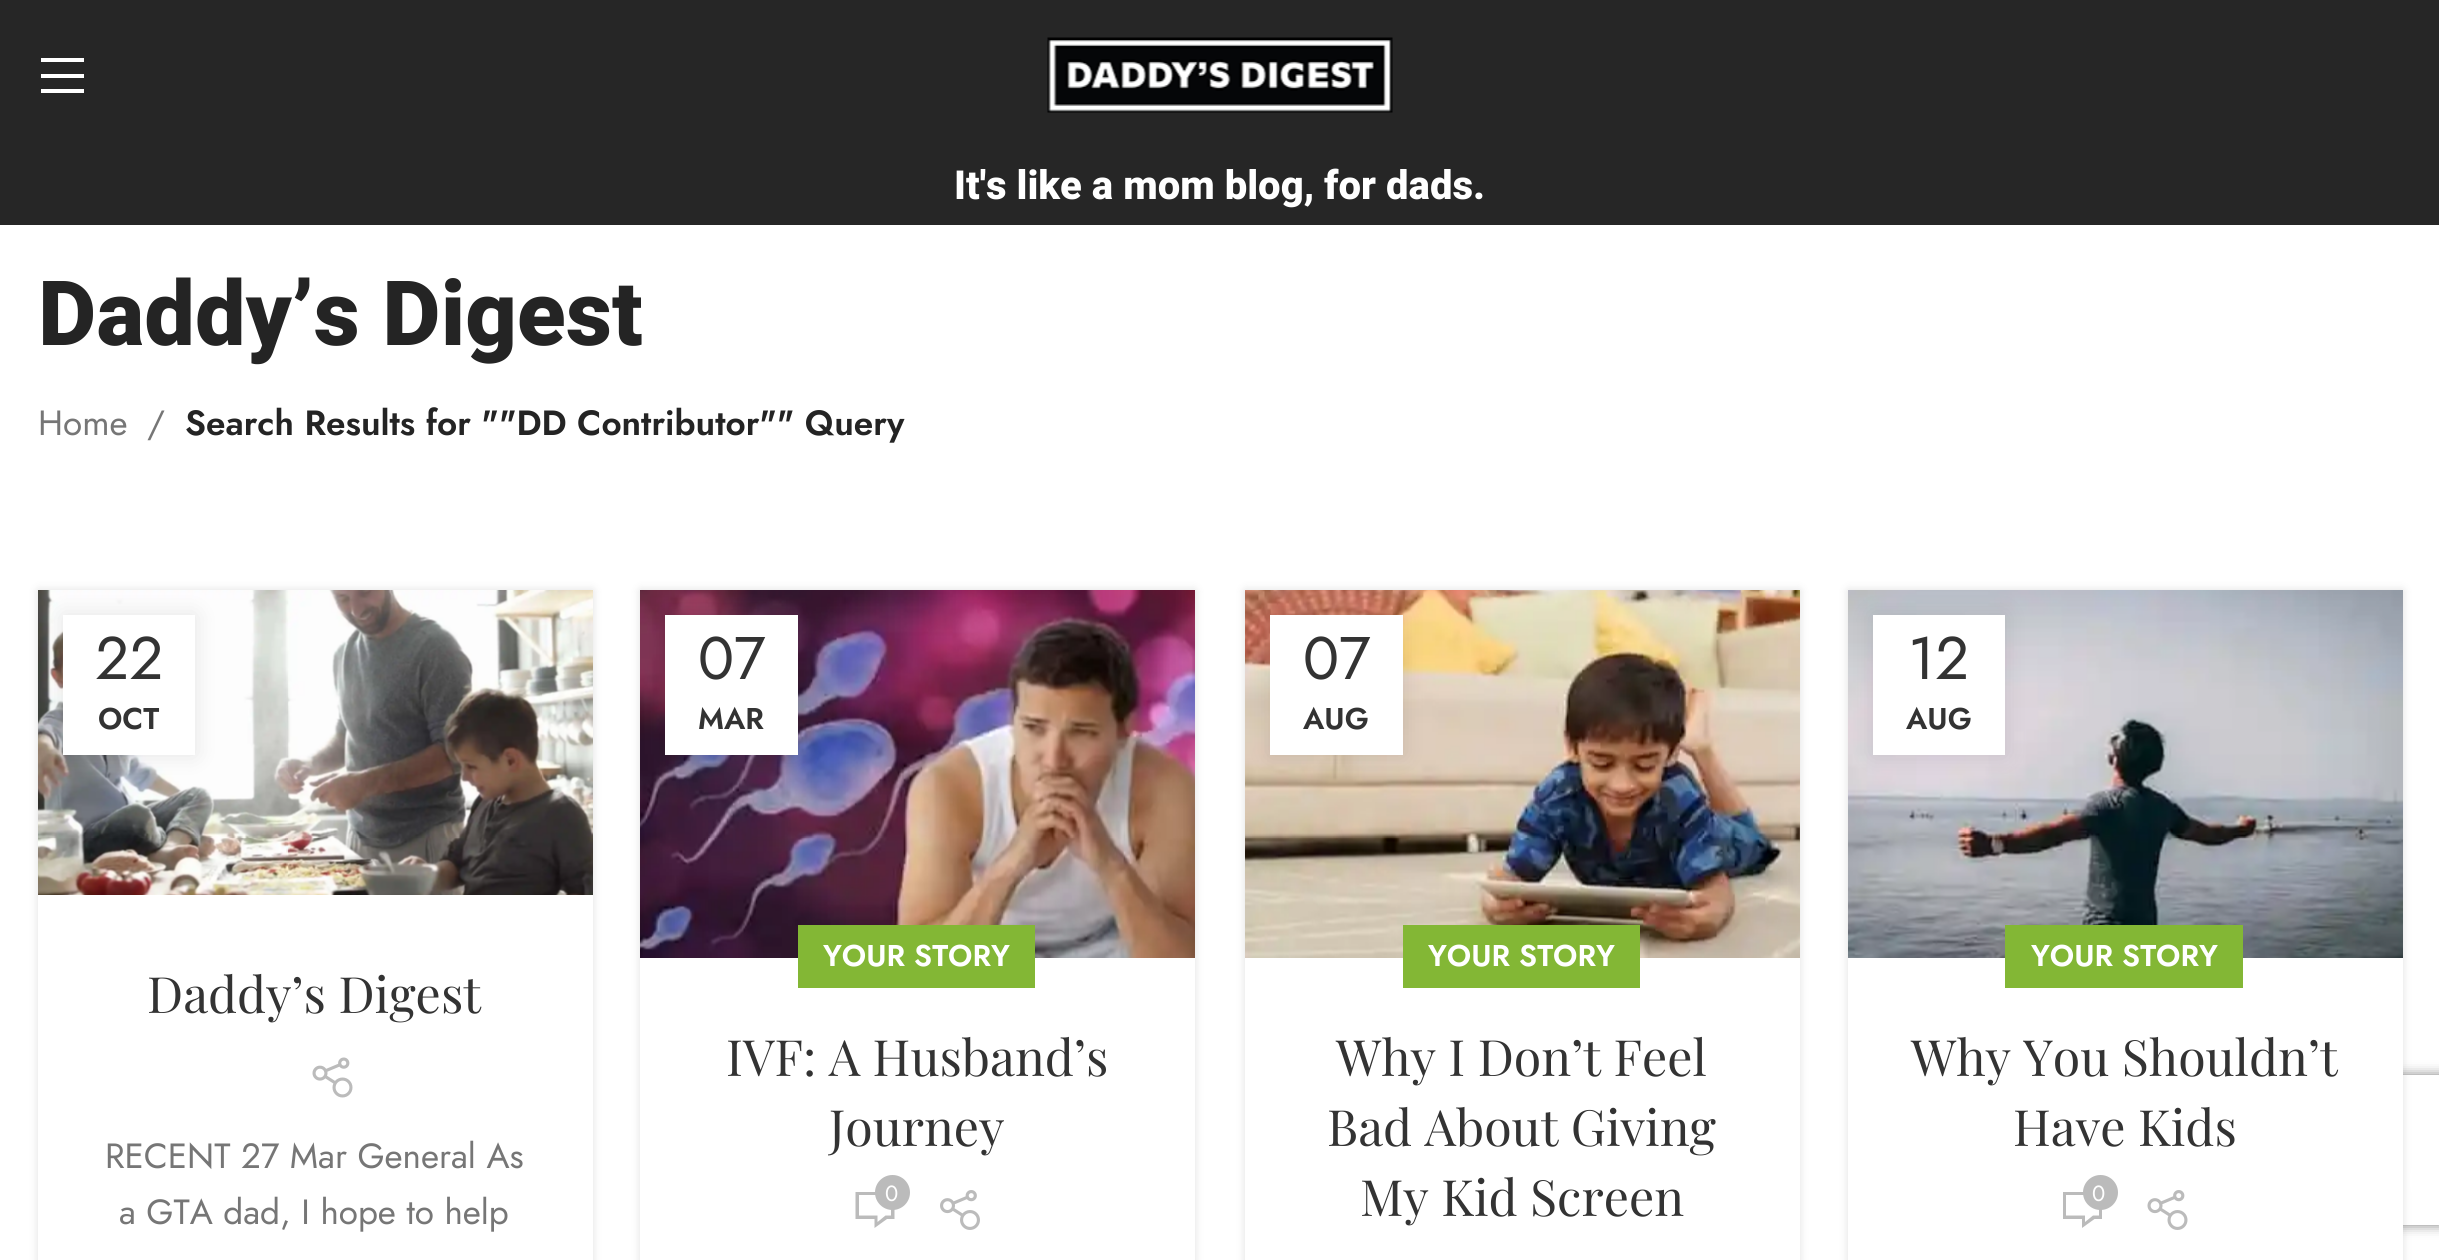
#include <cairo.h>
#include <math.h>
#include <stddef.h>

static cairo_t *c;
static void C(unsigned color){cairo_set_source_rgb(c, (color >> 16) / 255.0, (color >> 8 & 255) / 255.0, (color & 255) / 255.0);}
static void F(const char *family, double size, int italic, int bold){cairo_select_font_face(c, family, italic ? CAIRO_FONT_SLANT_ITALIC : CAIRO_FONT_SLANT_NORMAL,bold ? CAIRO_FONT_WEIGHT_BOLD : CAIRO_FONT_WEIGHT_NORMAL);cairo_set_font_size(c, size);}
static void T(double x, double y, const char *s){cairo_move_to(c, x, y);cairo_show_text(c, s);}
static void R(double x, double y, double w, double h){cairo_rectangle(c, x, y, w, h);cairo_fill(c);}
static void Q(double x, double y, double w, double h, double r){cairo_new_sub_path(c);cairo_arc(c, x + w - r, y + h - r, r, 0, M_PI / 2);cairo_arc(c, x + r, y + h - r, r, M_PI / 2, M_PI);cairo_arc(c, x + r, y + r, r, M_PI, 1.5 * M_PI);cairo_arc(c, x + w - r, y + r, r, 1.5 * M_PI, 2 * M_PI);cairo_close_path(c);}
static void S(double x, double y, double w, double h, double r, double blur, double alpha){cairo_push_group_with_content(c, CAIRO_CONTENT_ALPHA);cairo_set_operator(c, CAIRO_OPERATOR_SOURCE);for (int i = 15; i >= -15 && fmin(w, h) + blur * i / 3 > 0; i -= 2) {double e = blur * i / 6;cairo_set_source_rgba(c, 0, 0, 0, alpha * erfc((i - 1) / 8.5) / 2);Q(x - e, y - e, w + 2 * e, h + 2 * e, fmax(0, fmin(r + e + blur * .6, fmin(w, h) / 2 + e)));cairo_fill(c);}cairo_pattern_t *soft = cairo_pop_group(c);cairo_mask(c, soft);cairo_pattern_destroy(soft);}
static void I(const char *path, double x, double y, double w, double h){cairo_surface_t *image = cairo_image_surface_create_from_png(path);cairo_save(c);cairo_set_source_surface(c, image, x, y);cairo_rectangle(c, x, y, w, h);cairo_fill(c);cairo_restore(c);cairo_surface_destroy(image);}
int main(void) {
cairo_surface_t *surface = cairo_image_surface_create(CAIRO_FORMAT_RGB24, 2439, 1260);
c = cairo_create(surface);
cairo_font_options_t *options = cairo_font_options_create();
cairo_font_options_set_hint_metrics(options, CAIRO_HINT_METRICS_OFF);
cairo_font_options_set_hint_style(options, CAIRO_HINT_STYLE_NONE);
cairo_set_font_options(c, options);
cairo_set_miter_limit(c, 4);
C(0xffffff);
cairo_paint(c);
C(0x262626);
R(0,0,2439,225);
C(0xffffff);
cairo_new_path(c);
cairo_move_to(c,41,62);
cairo_line_to(c,84,62);
cairo_line_to(c,84,58);
cairo_line_to(c,41,58);
cairo_close_path(c);
cairo_move_to(c,41,78);
cairo_line_to(c,84,78);
cairo_line_to(c,84,74);
cairo_line_to(c,41,74);
cairo_close_path(c);
cairo_move_to(c,41,93);
cairo_line_to(c,84,93);
cairo_line_to(c,84,89);
cairo_line_to(c,41,89);
cairo_close_path(c);
cairo_fill(c);
I("1.png",1047,37,346,76);
F("Heebo ExtraBold",40,0,0);
T(954,199,"It's like a mom blog, for dads.");
F("Heebo ExtraBold",90,0,0);
C(0x242424);
T(38,345,"Daddy’s Digest");
F("Jost",35,0,0);
C(0x767676);
T(38,435,"Home");
T(147,435,"/");
F("Jost SemiBold",35,0,0);
C(0x242424);
T(185,435,"Search Results for \"\"DD Contributor\"\" Query");
C(0x000000);
S(38,590,555,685,0,5,.12);
I("2.png",38,590,555,305);
S(63,615,132,140,0,11,.1);
C(0xffffff);
R(63,615,132,140);
F("Jost",60,0,0);
C(0x333333);
T(95,679,"22");
F("Jost SemiBold",30,0,0);
T(98,729,"OCT");
C(0xffffff);
R(38,895,555,365);
F("Playfair Display",50,0,0);
C(0x333333);
T(147,1013,"Daddy’s Digest");
I("3.png",312,1057,41,41);
F("Jost",35,0,0);
C(0x767676);
T(105,1168,"RECENT 27 Mar General As");
T(119,1224,"a GTA dad, I hope to help");
cairo_save(c);
cairo_set_fill_rule(c,CAIRO_FILL_RULE_EVEN_ODD);
cairo_new_path(c);
cairo_move_to(c,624,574);
cairo_line_to(c,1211,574);
cairo_line_to(c,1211,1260);
cairo_line_to(c,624,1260);
cairo_close_path(c);
cairo_move_to(c,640,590);
cairo_line_to(c,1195,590);
cairo_line_to(c,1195,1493);
cairo_line_to(c,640,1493);
cairo_close_path(c);
cairo_clip(c);
C(0x000000);
S(640,590,555,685,0,5,.12);
cairo_restore(c);
I("4.png",640,590,555,368);
C(0x000000);
S(665,615,133,140,0,11,.1);
C(0xffffff);
R(665,615,133,140);
F("Jost",60,0,0);
C(0x333333);
T(698,679,"07");
F("Jost SemiBold",30,0,0);
T(698,729,"MAR");
C(0x83b735);
R(798,925,237,63);
C(0xffffff);
T(823,966,"YOUR STORY");
F("Playfair Display",50,0,0);
C(0x333333);
T(726,1076,"IVF: A Husband’s");
T(829,1146,"Journey");
C(0xbbbbbb);
cairo_new_path(c);
cairo_move_to(c,887,1219);
cairo_line_to(c,894.5,1219);
cairo_line_to(c,894.5,1192);
cairo_line_to(c,855.5,1192);
cairo_line_to(c,855.5,1219);
cairo_line_to(c,874.5,1219);
cairo_line_to(c,874.5,1228);
cairo_close_path(c);
cairo_move_to(c,877.5,1222);
cairo_line_to(c,877.5,1215.5);
cairo_line_to(c,859,1215.5);
cairo_line_to(c,859,1195);
cairo_line_to(c,891,1195);
cairo_line_to(c,891,1215.5);
cairo_line_to(c,885.5,1215.5);
cairo_close_path(c);
cairo_fill(c);
cairo_arc(c,892.5,1192.5,17.5,0,2 * M_PI);
cairo_fill(c);
F("Jost",22,0,0);
C(0xffffff);
T(885,1201,"0");
I("5.png",940,1190,40,40);
cairo_save(c);
cairo_set_fill_rule(c,CAIRO_FILL_RULE_EVEN_ODD);
cairo_new_path(c);
cairo_move_to(c,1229,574);
cairo_line_to(c,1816,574);
cairo_line_to(c,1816,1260);
cairo_line_to(c,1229,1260);
cairo_close_path(c);
cairo_move_to(c,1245,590);
cairo_line_to(c,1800,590);
cairo_line_to(c,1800,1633);
cairo_line_to(c,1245,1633);
cairo_close_path(c);
cairo_clip(c);
C(0x000000);
S(1245,590,555,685,0,5,.12);
cairo_restore(c);
I("6.png",1245,590,555,368);
C(0x000000);
S(1270,615,133,140,0,11,.1);
C(0xffffff);
R(1270,615,133,140);
F("Jost",60,0,0);
C(0x333333);
T(1303,679,"07");
F("Jost SemiBold",30,0,0);
T(1303,729,"AUG");
C(0x83b735);
R(1403,925,237,63);
C(0xffffff);
T(1428,966,"YOUR STORY");
F("Playfair Display",50,0,0);
C(0x333333);
T(1336,1076,"Why I Don’t Feel");
T(1327,1146,"Bad About Giving");
T(1360,1216,"My Kid Screen");
C(0x000000);
S(1848,590,555,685,0,5,.12);
I("7.png",1848,590,555,368);
S(1873,615,132,140,0,11,.1);
C(0xffffff);
R(1873,615,132,140);
F("Jost",60,0,0);
C(0x333333);
T(1908,679,"12");
F("Jost SemiBold",30,0,0);
T(1906,729,"AUG");
cairo_save(c);
cairo_set_fill_rule(c,CAIRO_FILL_RULE_EVEN_ODD);
cairo_new_path(c);
cairo_move_to(c,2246,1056);
cairo_line_to(c,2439,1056);
cairo_line_to(c,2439,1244);
cairo_line_to(c,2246,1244);
cairo_close_path(c);
cairo_move_to(c,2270,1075);
cairo_line_to(c,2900,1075);
cairo_curve_to(c,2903,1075,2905,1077,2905,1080);
cairo_line_to(c,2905,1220);
cairo_curve_to(c,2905,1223,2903,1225,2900,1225);
cairo_line_to(c,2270,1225);
cairo_curve_to(c,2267,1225,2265,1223,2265,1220);
cairo_line_to(c,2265,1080);
cairo_curve_to(c,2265,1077,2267,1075,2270,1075);
cairo_close_path(c);
cairo_clip(c);
C(0x808080);
S(2265,1075,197,150,5,6,1);
cairo_restore(c);
C(0xffffff);
R(1848,958,555,302);
C(0x83b735);
R(2005,925,238,63);
C(0xffffff);
T(2031,966,"YOUR STORY");
F("Playfair Display",50,0,0);
C(0x333333);
T(1911,1076,"Why You Shouldn’t");
T(2013,1146,"Have Kids");
C(0xbbbbbb);
cairo_new_path(c);
cairo_move_to(c,2094.5,1219);
cairo_line_to(c,2102,1219);
cairo_line_to(c,2102,1192);
cairo_line_to(c,2063,1192);
cairo_line_to(c,2063,1219);
cairo_line_to(c,2082,1219);
cairo_line_to(c,2082,1228);
cairo_close_path(c);
cairo_move_to(c,2085,1222);
cairo_line_to(c,2085,1215.5);
cairo_line_to(c,2066,1215.5);
cairo_line_to(c,2066,1195);
cairo_line_to(c,2099,1195);
cairo_line_to(c,2099,1215.5);
cairo_line_to(c,2093,1215.5);
cairo_close_path(c);
cairo_fill(c);
cairo_arc(c,2100.5,1192.5,17.5,0,2 * M_PI);
cairo_fill(c);
F("Jost",22,0,0);
C(0xffffff);
T(2092,1201,"0");
I("8.png",2147,1190,41,40);
Q(2410,1130,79,100,50);
cairo_fill(c);
cairo_surface_write_to_png(surface, "o.png");
cairo_font_options_destroy(options);
cairo_destroy(c);
cairo_surface_destroy(surface);
return 0;
}
